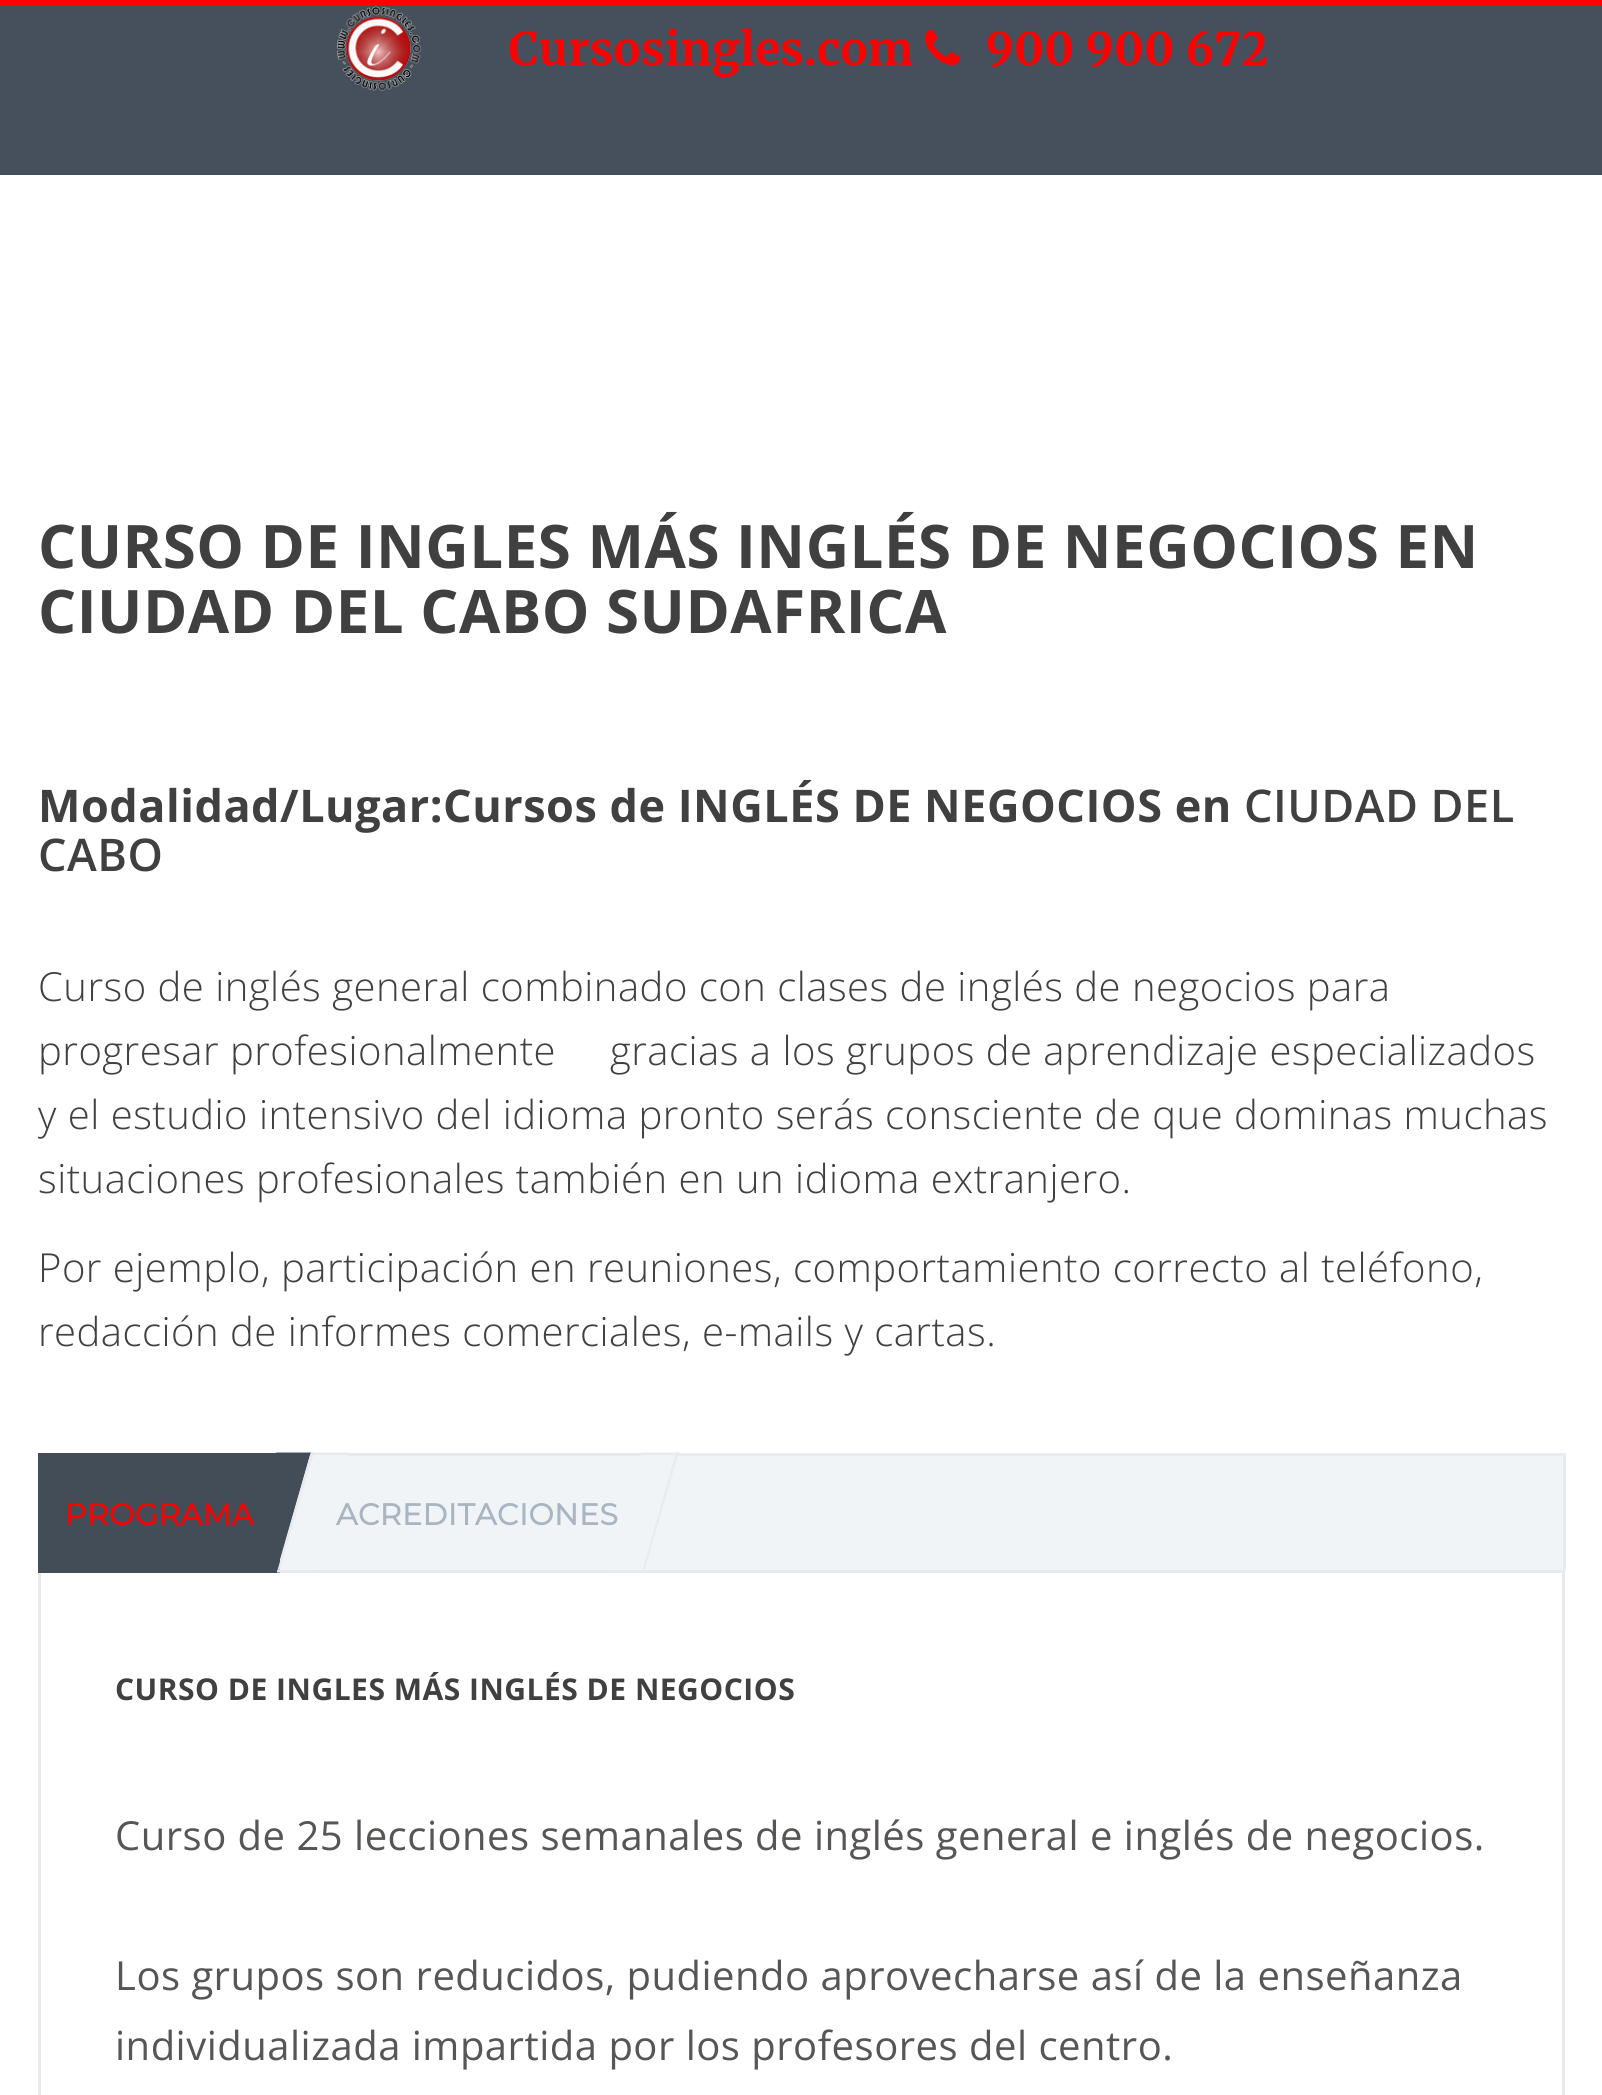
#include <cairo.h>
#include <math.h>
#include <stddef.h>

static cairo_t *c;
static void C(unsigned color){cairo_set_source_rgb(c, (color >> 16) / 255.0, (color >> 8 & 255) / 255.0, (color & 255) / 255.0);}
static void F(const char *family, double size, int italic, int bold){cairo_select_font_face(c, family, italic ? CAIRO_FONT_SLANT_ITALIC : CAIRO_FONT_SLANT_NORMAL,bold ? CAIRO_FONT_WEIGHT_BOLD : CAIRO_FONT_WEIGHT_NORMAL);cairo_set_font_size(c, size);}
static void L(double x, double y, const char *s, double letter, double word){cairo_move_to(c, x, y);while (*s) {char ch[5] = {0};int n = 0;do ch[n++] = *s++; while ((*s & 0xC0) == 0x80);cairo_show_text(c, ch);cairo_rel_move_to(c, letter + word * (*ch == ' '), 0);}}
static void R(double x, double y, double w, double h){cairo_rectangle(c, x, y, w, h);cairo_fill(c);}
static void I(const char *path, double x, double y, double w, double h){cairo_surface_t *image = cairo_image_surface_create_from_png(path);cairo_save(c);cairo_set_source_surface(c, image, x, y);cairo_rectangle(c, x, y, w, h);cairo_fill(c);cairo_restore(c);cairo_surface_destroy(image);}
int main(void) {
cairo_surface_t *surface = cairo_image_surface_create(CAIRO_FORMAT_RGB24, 1602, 2095);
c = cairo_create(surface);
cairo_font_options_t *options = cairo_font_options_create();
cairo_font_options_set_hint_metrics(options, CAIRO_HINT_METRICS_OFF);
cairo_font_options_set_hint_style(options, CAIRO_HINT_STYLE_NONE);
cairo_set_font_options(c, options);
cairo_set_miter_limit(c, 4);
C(0xffffff);
cairo_paint(c);
C(0x45505c);
R(0,5,1602,170);
C(0xff0000);
R(0,0,1602,5);
I("1.png",336,6,86,85);
F("Merriweather",45,0,1);
L(509,65,"Cursosingles.com",.5,0);
I("2.png",925,29,36,36);
L(986,65,"900 900 672",.5,0);
F("Open Sans",60,0,1);
C(0x404040);
L(38,568,"CURSO DE INGLES MÁS INGLÉS DE NEGOCIOS EN",.5,0);
L(38,633,"CIUDAD DEL CABO SUDAFRICA",.5,0);
F("Open Sans",45,0,1);
L(38,822,"Modalidad/Lugar:Cursos de INGLÉS DE NEGOCIOS en",.5,0);
F("Open Sans SemiBold",45,0,0);
L(1244,822,"CIUDAD DEL",.5,0);
L(38,871,"CABO",.5,0);
F("Open Sans Light",40,0,0);
L(38,1001,"Curso de inglés general combinado con clases de inglés de negocios para",.5,0);
L(38,1065,"progresar profesionalmente",.5,0);
L(610,1065,"gracias a los grupos de aprendizaje especializados",.5,0);
L(38,1129,"y el estudio intensivo del idioma pronto serás consciente de que dominas muchas",.5,0);
L(38,1193,"situaciones profesionales también en un idioma extranjero.",.5,0);
L(38,1282,"Por ejemplo, participación en reuniones, comportamiento correcto al teléfono,",.5,0);
L(38,1346,"redacción de informes comerciales, e-mails y cartas.",.5,0);
C(0xf0f4f7);
R(280,1456,1283,114);
C(0xe8ecf0);
R(309,1453,1256,3);
R(1563,1453,3,117);
C(0x424d58);
R(41,1456,239,114);
R(38,1453,242,3);
cairo_rectangle(c,39.5,1571.5,1524,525);
C(0xe6eaed);
cairo_set_line_width(c,3);
cairo_stroke(c);
C(0x424d58);
R(38,1570,242,3);
R(38,1453,3,120);
F("Montserrat",30,0,1);
C(0xff0000);
L(65,1525,"PROGRAMA",.5,0);
C(0x424d58);
cairo_new_path(c);
cairo_move_to(c,275,1455);
cairo_line_to(c,310,1455);
cairo_line_to(c,277,1570);
cairo_line_to(c,242,1570);
cairo_close_path(c);
cairo_fill(c);
C(0xe6eaed);
R(310,1453,3,120);
C(0x424d58);
cairo_new_path(c);
cairo_move_to(c,276,1452.5);
cairo_line_to(c,313.5,1452.5);
cairo_line_to(c,313,1455);
cairo_line_to(c,275.5,1455);
cairo_close_path(c);
cairo_fill(c);
C(0xe6eaed);
R(347,1453,298,3);
C(0xa9b5c1);
L(336,1525,"ACREDITACIONES",.5,0);
C(0xf0f4f7);
cairo_new_path(c);
cairo_move_to(c,313,1455);
cairo_line_to(c,348,1455);
cairo_line_to(c,315,1570);
cairo_line_to(c,280,1570);
cairo_close_path(c);
cairo_fill(c);
C(0xe8ecf0);
cairo_new_path(c);
cairo_move_to(c,311,1452.5);
cairo_line_to(c,348.5,1452.5);
cairo_line_to(c,348,1455);
cairo_line_to(c,310.5,1455);
cairo_close_path(c);
cairo_fill(c);
cairo_new_path(c);
cairo_move_to(c,277.5,1570);
cairo_line_to(c,315,1570);
cairo_line_to(c,314.5,1572.5);
cairo_line_to(c,277,1572.5);
cairo_close_path(c);
cairo_fill(c);
cairo_new_path(c);
cairo_move_to(c,311,1452);
cairo_line_to(c,314,1452);
cairo_line_to(c,279,1572);
cairo_line_to(c,277,1572);
cairo_close_path(c);
cairo_fill(c);
C(0xf0f4f7);
cairo_new_path(c);
cairo_move_to(c,641,1455);
cairo_line_to(c,676,1455);
cairo_line_to(c,643,1570);
cairo_line_to(c,608,1570);
cairo_close_path(c);
cairo_fill(c);
C(0xe8ecf0);
cairo_new_path(c);
cairo_move_to(c,641,1452.5);
cairo_line_to(c,678.5,1452.5);
cairo_line_to(c,678,1455);
cairo_line_to(c,640.5,1455);
cairo_close_path(c);
cairo_fill(c);
cairo_new_path(c);
cairo_move_to(c,676,1452);
cairo_line_to(c,679,1452);
cairo_line_to(c,644,1572);
cairo_line_to(c,642,1572);
cairo_close_path(c);
cairo_fill(c);
cairo_new_path(c);
cairo_move_to(c,607.5,1570);
cairo_line_to(c,645,1570);
cairo_line_to(c,644.5,1572.5);
cairo_line_to(c,607,1572.5);
cairo_close_path(c);
cairo_fill(c);
F("Open Sans",30,0,1);
C(0x404040);
L(115,1700,"CURSO DE INGLES MÁS INGLÉS DE NEGOCIOS",.5,0);
F("Open Sans",40,0,0);
C(0x585555);
L(115,1850,"Curso de 25 lecciones semanales de inglés general e inglés de negocios.",.5,0);
L(115,1990,"Los grupos son reducidos, pudiendo aprovecharse así de la enseñanza",.5,0);
L(115,2060,"individualizada impartida por los profesores del centro.",.5,0);
cairo_surface_write_to_png(surface, "o.png");
cairo_font_options_destroy(options);
cairo_destroy(c);
cairo_surface_destroy(surface);
return 0;
}
